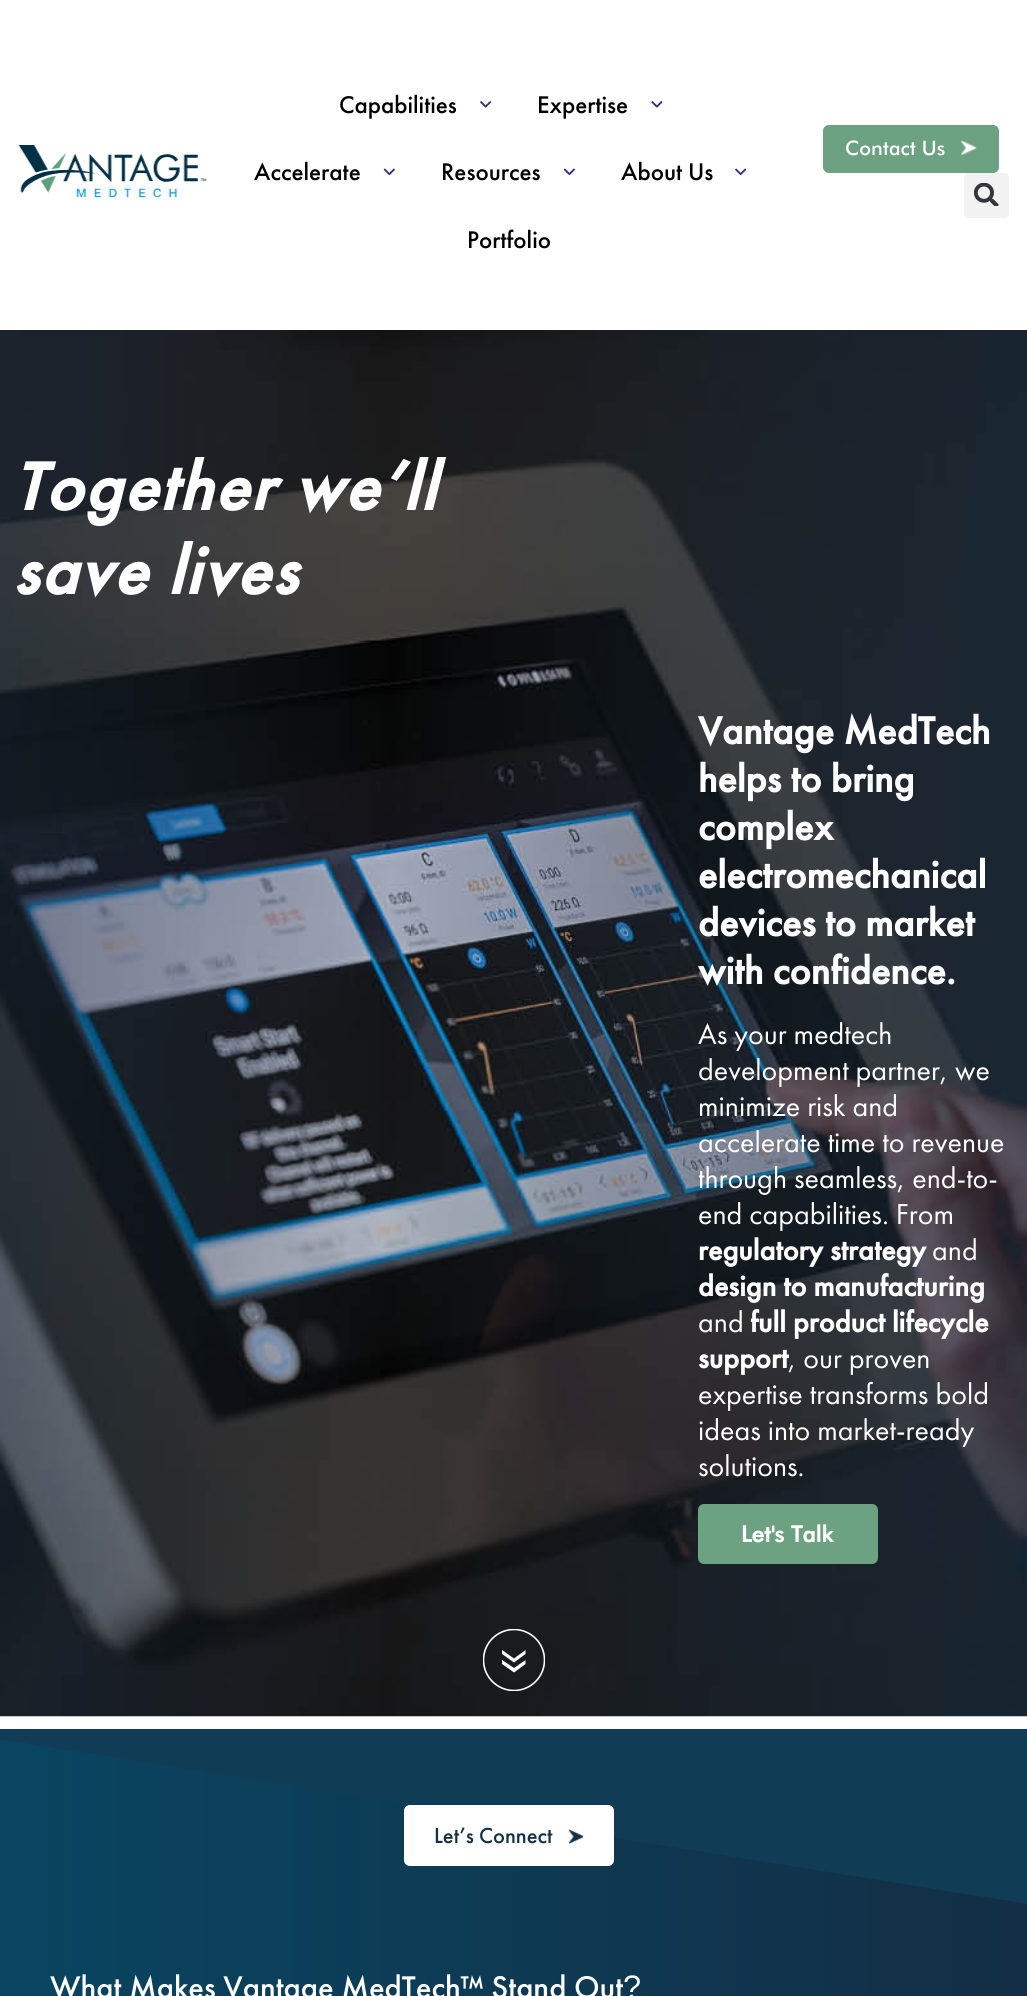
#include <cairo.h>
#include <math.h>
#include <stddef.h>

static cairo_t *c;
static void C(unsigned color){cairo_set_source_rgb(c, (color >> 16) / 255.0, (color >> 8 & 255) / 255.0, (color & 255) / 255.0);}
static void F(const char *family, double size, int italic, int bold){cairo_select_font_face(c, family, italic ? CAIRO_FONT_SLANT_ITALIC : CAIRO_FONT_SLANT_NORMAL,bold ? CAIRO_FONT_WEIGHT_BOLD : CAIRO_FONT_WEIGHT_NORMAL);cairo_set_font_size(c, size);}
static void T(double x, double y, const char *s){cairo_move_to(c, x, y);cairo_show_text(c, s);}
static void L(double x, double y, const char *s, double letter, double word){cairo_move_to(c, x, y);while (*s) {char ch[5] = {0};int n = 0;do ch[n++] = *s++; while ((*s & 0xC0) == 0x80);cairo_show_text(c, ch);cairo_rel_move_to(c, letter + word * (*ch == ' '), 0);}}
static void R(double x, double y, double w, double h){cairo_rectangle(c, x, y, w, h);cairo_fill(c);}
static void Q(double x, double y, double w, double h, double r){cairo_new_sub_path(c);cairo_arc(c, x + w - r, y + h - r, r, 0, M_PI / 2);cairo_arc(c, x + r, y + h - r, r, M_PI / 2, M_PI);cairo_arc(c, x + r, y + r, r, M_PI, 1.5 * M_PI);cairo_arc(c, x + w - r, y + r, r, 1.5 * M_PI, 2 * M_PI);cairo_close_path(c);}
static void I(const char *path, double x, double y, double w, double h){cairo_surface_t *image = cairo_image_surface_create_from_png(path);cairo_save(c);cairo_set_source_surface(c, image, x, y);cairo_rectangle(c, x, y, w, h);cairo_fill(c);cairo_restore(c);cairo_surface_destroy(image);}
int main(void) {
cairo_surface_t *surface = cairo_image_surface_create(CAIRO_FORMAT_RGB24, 1027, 1996);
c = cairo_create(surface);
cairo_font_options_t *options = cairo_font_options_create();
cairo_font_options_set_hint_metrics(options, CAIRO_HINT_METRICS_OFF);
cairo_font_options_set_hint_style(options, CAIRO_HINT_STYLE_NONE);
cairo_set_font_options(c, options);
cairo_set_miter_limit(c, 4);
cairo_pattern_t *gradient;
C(0xffffff);
cairo_paint(c);
I("1.png",18,145,189,53);
F("Futura PT Medium",25,0,0);
C(0x000000);
T(339,113,"Capabilities");
I("2.png",480,101,12,7);
T(537,113,"Expertise");
I("3.png",651,101,12,7);
T(254,180,"Accelerate");
I("4.png",383,168,12,7);
T(441,180,"Resources");
I("4.png",563,168,12,7);
T(621,180,"About Us");
I("5.png",735,168,12,7);
T(467,248,"Portfolio");
C(0x6ca181);
Q(823.5,125.5,175,47,5.5);
cairo_fill_preserve(c);
cairo_set_line_width(c,1);
cairo_stroke(c);
F("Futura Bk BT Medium",20,0,0);
C(0xffffff);
T(845,155,"Contact Us");
I("6.png",961,140,16,16);
C(0xf2f2f2);
Q(964,173,45,45,4);
cairo_fill(c);
I("7.png",974,183,25,23);
I("8.png",0,330,1027,1387);
F("Futura PT",70,1,1);
C(0xffffff);
L(13,510,"Together we’ll",2.1,0);
L(13,594,"save lives",2.1,0);
F("Futura PT",40,0,1);
T(698,744,"Vantage MedTech");
T(698,792,"helps to bring");
T(698,840,"complex");
T(698,888,"electromechanical");
T(698,936,"devices to market");
T(698,984,"with confidence.");
F("Futura PT",30,0,0);
T(698,1044,"As your medtech");
T(698,1080,"development partner, we");
T(698,1116,"minimize risk and");
T(698,1152,"accelerate time to revenue");
T(698,1188,"through seamless, end-to-");
T(698,1224,"end capabilities. From");
F("Futura PT",30,0,1);
T(698,1260,"regulatory strategy");
F("Futura PT",30,0,0);
T(932,1260,"and");
F("Futura PT",30,0,1);
T(698,1296,"design to manufacturing");
F("Futura PT",30,0,0);
T(698,1332,"and");
F("Futura PT",30,0,1);
T(750,1332,"full product lifecycle");
T(698,1368,"support");
F("Futura PT",30,0,0);
T(788,1368,", our proven");
T(698,1404,"expertise transforms bold");
T(698,1440,"ideas into market-ready");
T(698,1476,"solutions.");
C(0x6ca181);
Q(698,1504,180,60,6);
cairo_fill(c);
F("Futura Bk BT",22.5,0,1);
C(0xffffff);
T(741,1542,"Let's Talk");
cairo_new_path(c);
cairo_move_to(c,502,1650);
cairo_line_to(c,514,1658.5);
cairo_line_to(c,525.5,1650);
cairo_line_to(c,525.5,1654);
cairo_line_to(c,514,1662.5);
cairo_line_to(c,502,1654);
cairo_close_path(c);
cairo_move_to(c,502,1660);
cairo_line_to(c,514,1668);
cairo_line_to(c,525.5,1660);
cairo_line_to(c,525.5,1664);
cairo_line_to(c,514,1672.5);
cairo_line_to(c,502,1664);
cairo_close_path(c);
cairo_fill(c);
cairo_save(c);
cairo_rectangle(c,483,1629,62,62);
cairo_clip(c);
cairo_arc(c,514,1660,30.5,0,2 * M_PI);
cairo_set_line_width(c,1.6);
cairo_stroke(c);
cairo_restore(c);
gradient = cairo_pattern_create_linear(0,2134,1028,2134);
cairo_pattern_add_color_stop_rgba(gradient,0,0.035,0.271,0.38,1);
cairo_pattern_add_color_stop_rgba(gradient,1,0.075,0.18,0.271,1);
cairo_set_source(c,gradient);
cairo_pattern_destroy(gradient);
R(0,1739,1027,257);
C(0x103c56);
cairo_new_path(c);
cairo_move_to(c,-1,1739);
cairo_line_to(c,-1,1729);
cairo_line_to(c,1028,1729);
cairo_line_to(c,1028,1904);
cairo_close_path(c);
cairo_fill(c);
C(0xffffff);
Q(404.5,1805.5,209,60,5.5);
cairo_fill_preserve(c);
cairo_stroke(c);
F("Futura PT Medium",22.5,0,0);
C(0x143045);
T(434,1843,"Let’s Connect");
I("9.png",569,1829,15,15);
F("Futura PT Medium",32.5,0,0);
C(0xffffff);
T(50,1998,"What Makes Vantage MedTech™ Stand Out");
F("Liberation Sans",32.5,0,0);
T(623,1998,"?");
cairo_surface_write_to_png(surface, "o.png");
cairo_font_options_destroy(options);
cairo_destroy(c);
cairo_surface_destroy(surface);
return 0;
}
